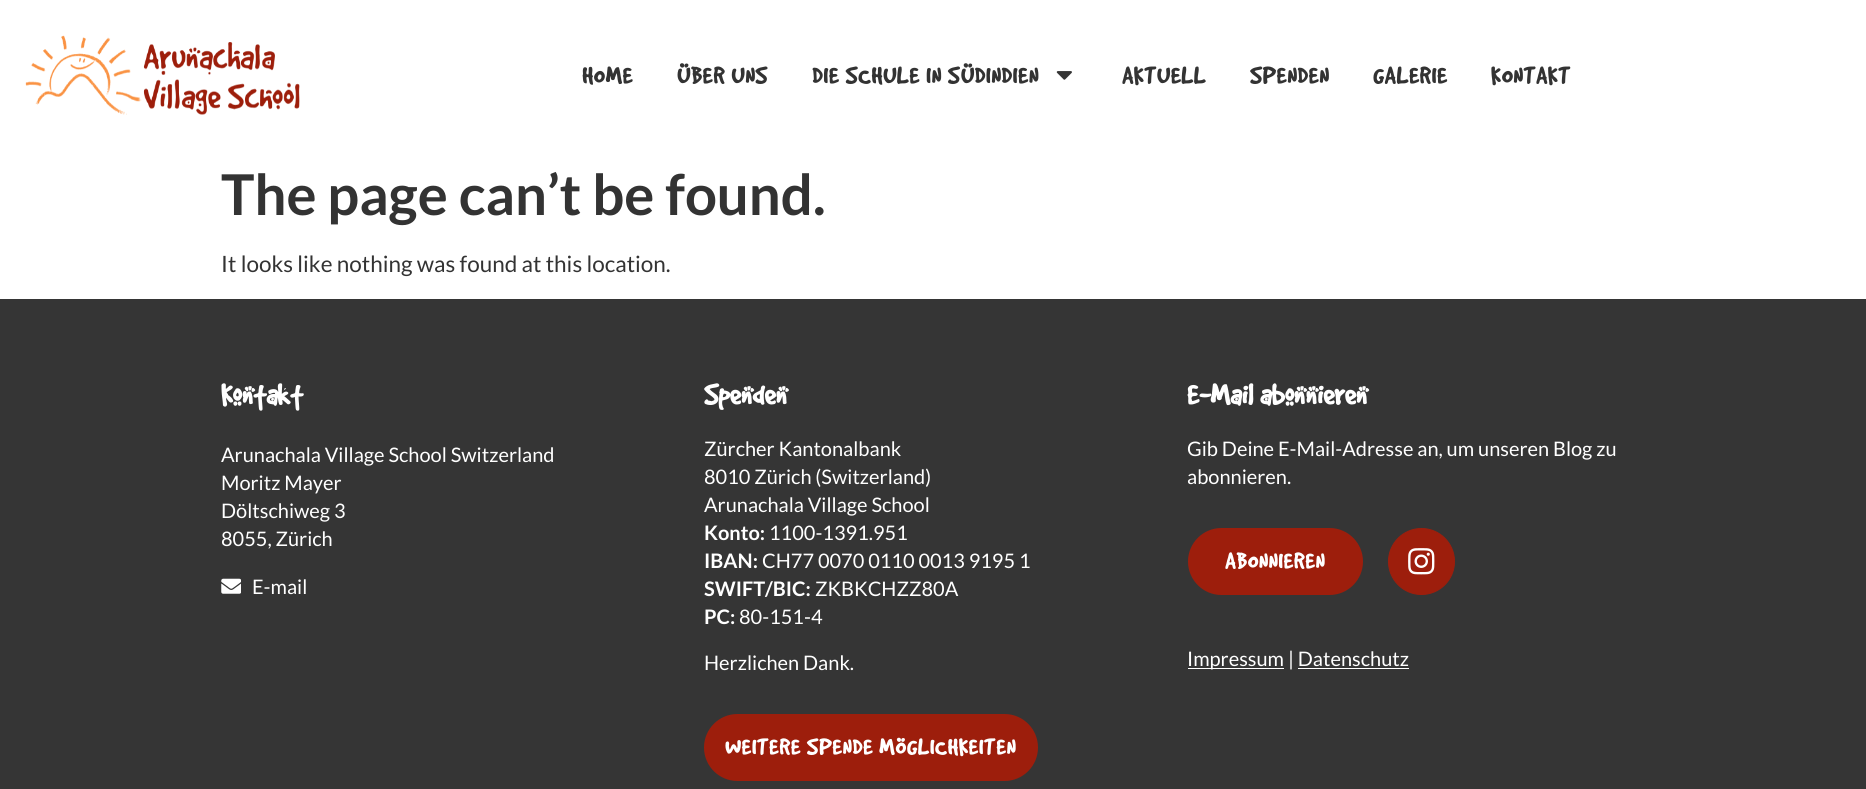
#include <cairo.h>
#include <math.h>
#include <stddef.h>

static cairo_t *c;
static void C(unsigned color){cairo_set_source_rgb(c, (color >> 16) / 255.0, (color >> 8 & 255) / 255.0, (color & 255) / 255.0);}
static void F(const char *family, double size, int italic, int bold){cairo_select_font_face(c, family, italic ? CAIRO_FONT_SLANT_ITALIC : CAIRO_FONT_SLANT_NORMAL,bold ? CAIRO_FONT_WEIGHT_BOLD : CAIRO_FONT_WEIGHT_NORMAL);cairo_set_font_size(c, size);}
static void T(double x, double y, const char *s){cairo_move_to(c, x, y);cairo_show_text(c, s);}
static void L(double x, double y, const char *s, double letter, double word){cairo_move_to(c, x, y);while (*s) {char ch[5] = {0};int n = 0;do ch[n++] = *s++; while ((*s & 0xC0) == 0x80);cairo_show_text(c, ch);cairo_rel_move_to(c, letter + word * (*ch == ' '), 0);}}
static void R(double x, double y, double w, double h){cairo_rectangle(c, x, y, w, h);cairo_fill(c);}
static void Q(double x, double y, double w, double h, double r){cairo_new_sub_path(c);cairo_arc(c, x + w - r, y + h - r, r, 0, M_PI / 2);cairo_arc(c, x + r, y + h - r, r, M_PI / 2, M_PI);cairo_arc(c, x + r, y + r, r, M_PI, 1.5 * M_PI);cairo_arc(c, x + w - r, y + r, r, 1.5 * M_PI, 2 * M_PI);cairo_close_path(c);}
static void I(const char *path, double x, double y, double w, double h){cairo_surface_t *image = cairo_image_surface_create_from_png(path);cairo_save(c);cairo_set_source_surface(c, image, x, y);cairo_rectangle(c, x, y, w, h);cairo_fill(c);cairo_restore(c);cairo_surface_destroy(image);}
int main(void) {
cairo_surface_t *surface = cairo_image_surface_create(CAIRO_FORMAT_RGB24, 1866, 789);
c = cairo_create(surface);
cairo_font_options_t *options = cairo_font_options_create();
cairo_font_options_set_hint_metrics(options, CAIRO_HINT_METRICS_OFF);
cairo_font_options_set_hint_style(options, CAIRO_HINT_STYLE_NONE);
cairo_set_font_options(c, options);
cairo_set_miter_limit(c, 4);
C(0xffffff);
cairo_paint(c);
I("1.png",25,35,275,80);
F("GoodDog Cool",26.25,0,1);
C(0x333333);
L(582,84,"HOME",1.25,0);
L(677,84,"ÜBER UNS",1.25,0);
L(812,84,"DIE SCHULE IN SÜDINDIEN",1.25,0);
I("2.png",1056,71,16,9);
L(1122,84,"AKTUELL",1.25,0);
L(1250,84,"SPENDEN",1.25,0);
L(1373,84,"GALERIE",1.25,0);
L(1491,84,"KONTAKT",1.25,0);
F("Lato",56.25,0,1);
T(221,215,"The page can’t be found.");
F("Lato",22.5,0,0);
T(221,272,"It looks like nothing was found at this location.");
C(0x353535);
R(0,299,1866,490);
F("GoodDog Cool",32.5,0,1);
C(0xffffff);
T(221,405,"Kontakt");
F("Lato",20,0,0);
T(221,462,"Arunachala Village School Switzerland");
T(221,490,"Moritz Mayer");
T(221,518,"Döltschiweg 3");
T(221,546,"8055, Zürich");
I("3.png",221,578,20,16);
T(252,594,"E-mail");
F("GoodDog Cool",32.5,0,1);
T(704,405,"Spenden");
F("Lato",20,0,0);
T(704,456,"Zürcher Kantonalbank");
T(704,484,"8010 Zürich (Switzerland)");
T(704,512,"Arunachala Village School");
F("Lato",20,0,1);
T(704,540,"Konto:");
F("Lato",20,0,0);
T(769,540,"1100-1391.951");
F("Lato",20,0,1);
T(704,568,"IBAN:");
F("Lato",20,0,0);
T(762,568,"CH77 0070 0110 0013 9195 1");
F("Lato",20,0,1);
T(704,596,"SWIFT/BIC:");
F("Lato",20,0,0);
T(815,596,"ZKBKCHZZ80A");
F("Lato",20,0,1);
T(704,624,"PC:");
F("Lato",20,0,0);
T(739,624,"80-151-4");
T(704,670,"Herzlichen Dank.");
C(0x9d1e0c);
Q(705.5,715.5,331,64,32);
cairo_fill_preserve(c);
cairo_set_line_width(c,3);
cairo_stroke(c);
F("GoodDog Cool",25,0,1);
C(0xffffff);
L(725,755,"WEITERE SPENDE MÖGLICHKEITEN",1.25,0);
F("GoodDog Cool",32.5,0,1);
T(1187,405,"E-Mail abonnieren");
F("Lato",20,0,0);
T(1187,456,"Gib Deine E-Mail-Adresse an, um unseren Blog zu");
T(1187,484,"abonnieren.");
C(0x9d1e0c);
Q(1189.5,529.5,172,64,32);
cairo_fill_preserve(c);
cairo_stroke(c);
F("GoodDog Cool",25,0,1);
C(0xffffff);
L(1225,569,"ABONNIEREN",1.25,0);
C(0x9d1e0c);
cairo_new_path(c);
cairo_arc(c,1421.5,561.5,33,0,2 * M_PI);
cairo_fill_preserve(c);
cairo_set_line_width(c,1);
cairo_stroke(c);
I("4.png",1408,548,27,27);
C(0xffffff);
R(1188,668,96,1);
F("Lato",20,0,0);
T(1187,666,"Impressum | Datenschutz");
R(1298,668,111,1);
cairo_surface_write_to_png(surface, "o.png");
cairo_font_options_destroy(options);
cairo_destroy(c);
cairo_surface_destroy(surface);
return 0;
}
